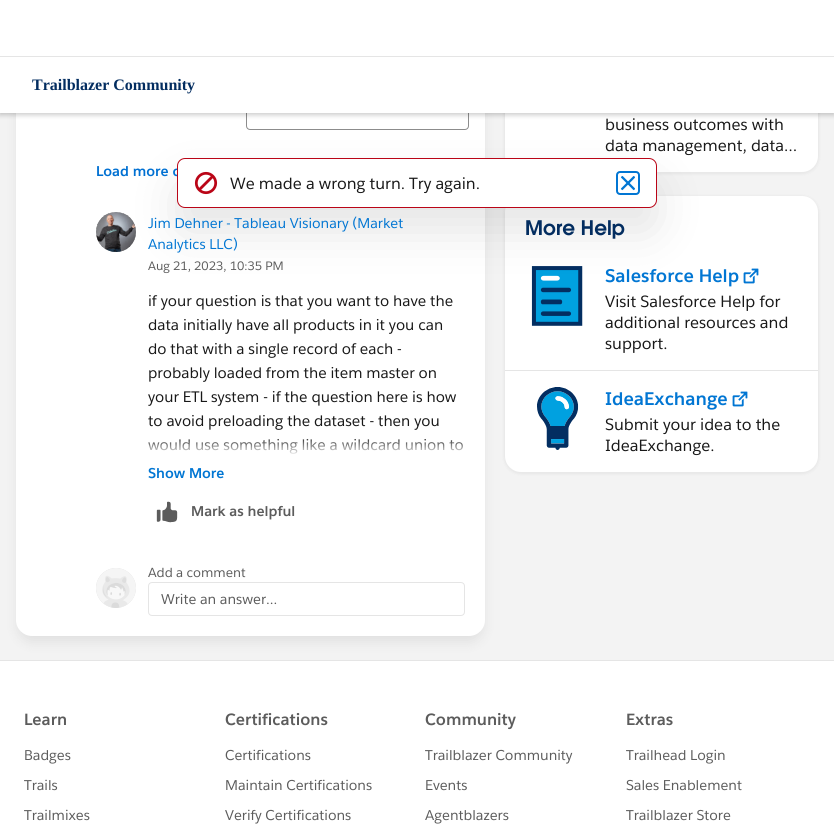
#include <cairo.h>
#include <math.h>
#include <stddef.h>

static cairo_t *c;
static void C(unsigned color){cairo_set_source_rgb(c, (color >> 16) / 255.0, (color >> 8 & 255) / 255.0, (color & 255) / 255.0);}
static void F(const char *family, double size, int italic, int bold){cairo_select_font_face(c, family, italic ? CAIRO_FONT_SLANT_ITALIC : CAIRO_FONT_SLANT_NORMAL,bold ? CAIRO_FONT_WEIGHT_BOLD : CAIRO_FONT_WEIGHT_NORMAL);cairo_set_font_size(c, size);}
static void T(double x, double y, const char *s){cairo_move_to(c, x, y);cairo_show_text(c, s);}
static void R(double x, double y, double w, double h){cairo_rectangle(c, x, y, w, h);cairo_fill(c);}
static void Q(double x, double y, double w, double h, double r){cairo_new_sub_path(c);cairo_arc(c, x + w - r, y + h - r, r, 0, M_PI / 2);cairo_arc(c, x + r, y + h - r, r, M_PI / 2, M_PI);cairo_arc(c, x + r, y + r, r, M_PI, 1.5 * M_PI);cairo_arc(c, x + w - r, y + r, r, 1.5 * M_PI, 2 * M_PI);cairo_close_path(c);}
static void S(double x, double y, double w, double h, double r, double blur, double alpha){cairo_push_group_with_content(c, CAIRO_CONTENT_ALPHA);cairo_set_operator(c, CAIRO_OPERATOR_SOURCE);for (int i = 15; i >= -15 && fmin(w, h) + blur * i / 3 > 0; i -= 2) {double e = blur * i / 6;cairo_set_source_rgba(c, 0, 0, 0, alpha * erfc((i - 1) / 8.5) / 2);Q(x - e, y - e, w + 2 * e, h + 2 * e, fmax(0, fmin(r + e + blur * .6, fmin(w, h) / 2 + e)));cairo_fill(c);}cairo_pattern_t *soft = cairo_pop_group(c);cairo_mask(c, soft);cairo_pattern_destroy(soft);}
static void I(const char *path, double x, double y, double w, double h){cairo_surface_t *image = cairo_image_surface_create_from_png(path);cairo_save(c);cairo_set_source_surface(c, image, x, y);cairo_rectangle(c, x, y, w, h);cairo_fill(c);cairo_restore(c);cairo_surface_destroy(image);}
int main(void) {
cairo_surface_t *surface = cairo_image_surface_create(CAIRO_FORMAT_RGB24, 834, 825);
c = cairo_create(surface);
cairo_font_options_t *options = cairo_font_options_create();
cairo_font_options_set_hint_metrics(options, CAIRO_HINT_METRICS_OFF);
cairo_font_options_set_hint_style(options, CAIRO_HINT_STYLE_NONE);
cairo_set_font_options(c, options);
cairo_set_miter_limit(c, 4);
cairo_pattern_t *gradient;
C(0xffffff);
cairo_paint(c);
C(0xf3f3f3);
R(0,113,834,547);
C(0xe5e5e5);
R(0,660,834,1);
C(0x181818);
S(18,-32,465,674,14,6,.09);
C(0xffffff);
Q(16,-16,469,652,16);
cairo_fill(c);
Q(246.5,86.5,222,43,3.5);
C(0x8c8c8c);
cairo_set_line_width(c,1);
cairo_stroke(c);
C(0x181818);
S(504,-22,315,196,17,1.5,.06);
C(0xffffff);
Q(505,-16,313,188,16);
cairo_fill(c);
C(0x181818);
S(-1,57,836,59,0,2,.16);
S(0,56,834,57,0,1,.08);
C(0xffffff);
R(0,0,834,56);
C(0xe5e5e5);
cairo_arc(c,116,232,20,0,2 * M_PI);
cairo_fill(c);
I("1.png",96,212,40,40);
C(0x181818);
S(504,196,315,278,17,1.5,.06);
C(0xffffff);
Q(505,196,313,276,16);
cairo_fill(c);
I("4.png",531,266,52,60);
C(0x181818);
S(179,184,476,46,6,24,.12);
C(0xffffff);
R(0,57,834,56);
C(0xe5e5e5);
R(0,56,834,1);
F("Liberation Serif",16,0,1);
C(0x032d60);
T(32,90,"Trailblazer Community");
F("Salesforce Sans",14,0,1);
C(0x0070d2);
T(96,176,"Load more c");
F("Salesforce Sans",14,0,0);
C(0x0176d3);
T(148,228,"Jim Dehner - Tableau Visionary (Market");
T(148,249,"Analytics LLC)");
F("Salesforce Sans",12,0,0);
C(0x5c5c5c);
T(148,270,"Aug 21, 2023, 10:35 PM");
F("Salesforce Sans",15,0,0);
C(0x181818);
T(148,306,"if your question is that you want to have the");
T(148,330,"data initially have all products in it you can");
T(148,354,"do that with a single record of each -");
T(148,378,"probably loaded from the item master on");
T(148,402,"your ETL system - if the question here is how");
T(148,426,"to avoid preloading the dataset - then you");
T(148,450,"would use something like a wildcard union to");
gradient = cairo_pattern_create_linear(307,406,307,456);
cairo_pattern_add_color_stop_rgba(gradient,.6,1,1,1,0);
cairo_pattern_add_color_stop_rgba(gradient,1,1,1,1,1);
cairo_set_source(c,gradient);
cairo_pattern_destroy(gradient);
R(148,439,315,15);
F("Salesforce Sans",14,0,1);
C(0x0176d3);
T(148,478,"Show More");
I("2.png",156,501,22,22);
C(0x5c5c5c);
T(191,516,"Mark as helpful");
C(0xe5e5e5);
cairo_new_path(c);
cairo_arc(c,116,588,20,0,2 * M_PI);
cairo_fill(c);
I("3.png",96,568,40,40);
F("Salesforce Sans",13,0,0);
C(0x5c5c5c);
T(148,577,"Add a comment");
Q(148.5,582.5,316,33,3.5);
C(0xe5e5e5);
cairo_stroke(c);
F("Salesforce Sans",14,0,0);
C(0x5c5c5c);
T(161,604,"Write an answer...");
F("Salesforce Sans",16,0,0);
C(0x181818);
T(605,130,"business outcomes with");
T(605,151,"data management, data…");
F("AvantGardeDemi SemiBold",20,0,0);
C(0x032d60);
T(525,235,"More Help");
F("Salesforce Sans",18,0,1);
C(0x0176d3);
T(605,282,"Salesforce Help");
I("5.png",743,268,16,16);
F("Salesforce Sans",16,0,0);
C(0x181818);
T(605,307,"Visit Salesforce Help for");
T(605,328,"additional resources and");
T(605,349,"support.");
C(0xe5e5e5);
R(505,370,313,1);
I("6.png",537,387,42,63);
F("Salesforce Sans",18,0,1);
C(0x0176d3);
T(605,405,"IdeaExchange");
I("5.png",732,391,16,16);
F("Salesforce Sans",16,0,0);
C(0x181818);
T(605,430,"Submit your idea to the");
T(605,451,"IdeaExchange.");
C(0xffffff);
Q(177.5,158.5,479,49,7.5);
cairo_fill_preserve(c);
C(0xba0517);
cairo_stroke(c);
I("7.png",194,171,24,24);
C(0x181818);
T(230,189,"We made a wrong turn. Try again.");
Q(617,172,22,22,3);
C(0x0176d3);
cairo_set_line_width(c,2);
cairo_stroke(c);
I("8.png",620,176,15,15);
F("Salesforce Sans",16,0,1);
C(0x5c5c5c);
T(24,725,"Learn");
F("Salesforce Sans",14,0,0);
T(24,760,"Badges");
T(24,790,"Trails");
T(24,820,"Trailmixes");
F("Salesforce Sans",16,0,1);
T(225,725,"Certifications");
F("Salesforce Sans",14,0,0);
T(225,760,"Certifications");
T(225,790,"Maintain Certifications");
T(225,820,"Verify Certifications");
F("Salesforce Sans",16,0,1);
T(425,725,"Community");
F("Salesforce Sans",14,0,0);
T(425,760,"Trailblazer Community");
T(425,790,"Events");
T(425,820,"Agentblazers");
F("Salesforce Sans",16,0,1);
T(626,725,"Extras");
F("Salesforce Sans",14,0,0);
T(626,760,"Trailhead Login");
T(626,790,"Sales Enablement");
T(626,820,"Trailblazer Store");
cairo_surface_write_to_png(surface, "o.png");
cairo_font_options_destroy(options);
cairo_destroy(c);
cairo_surface_destroy(surface);
return 0;
}
